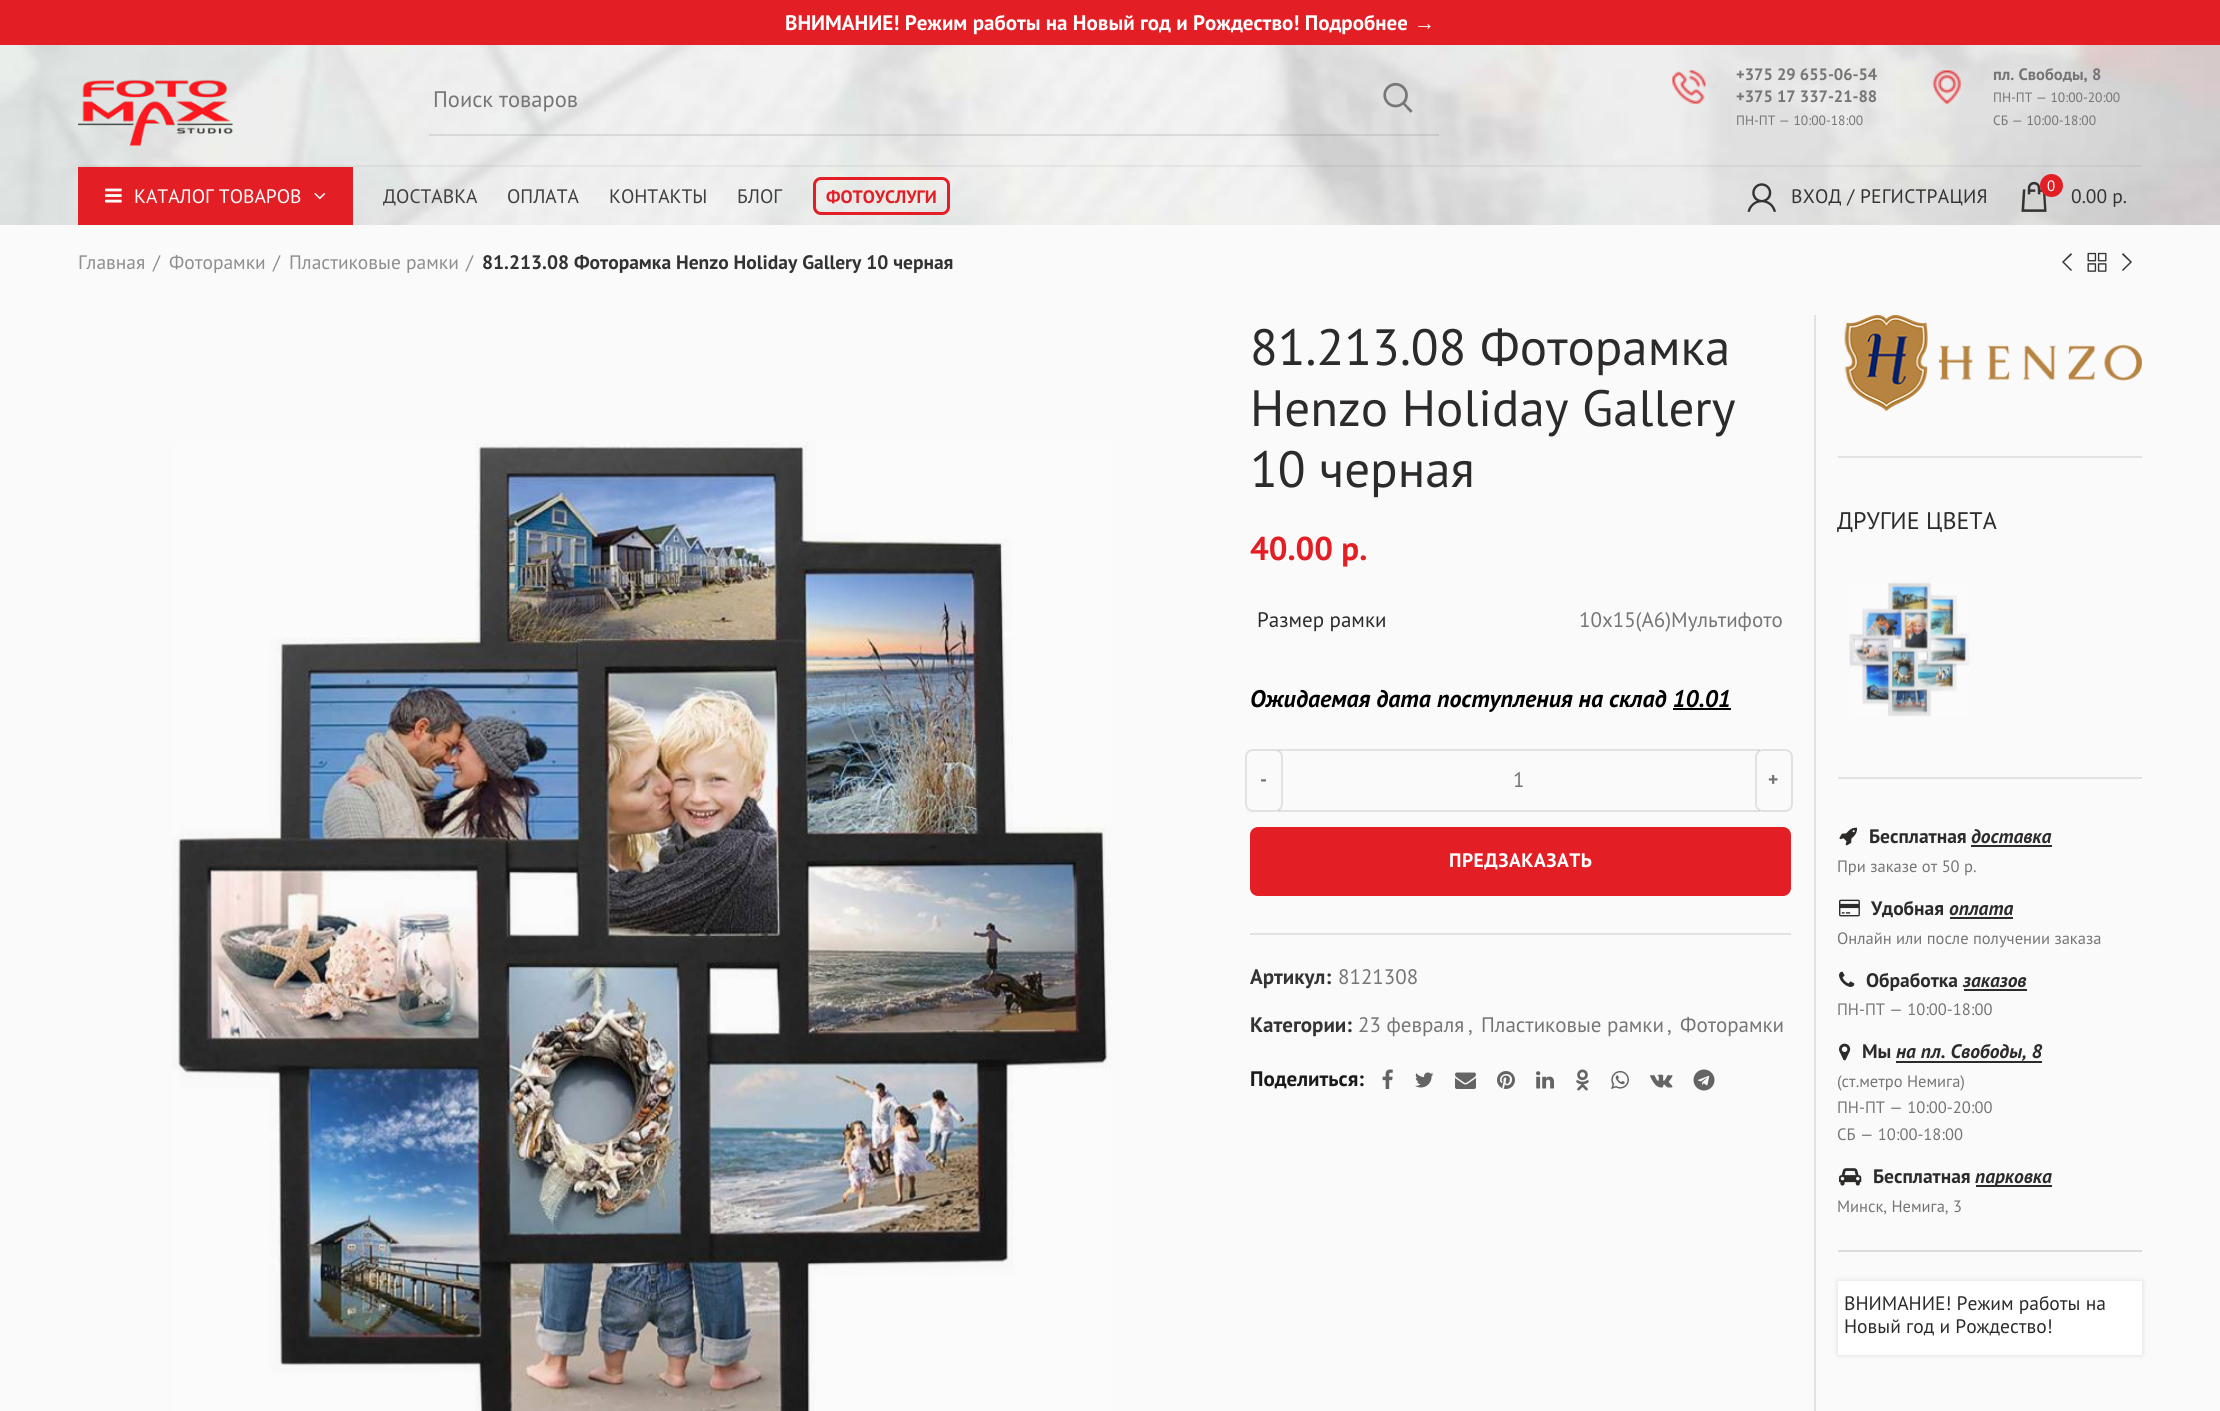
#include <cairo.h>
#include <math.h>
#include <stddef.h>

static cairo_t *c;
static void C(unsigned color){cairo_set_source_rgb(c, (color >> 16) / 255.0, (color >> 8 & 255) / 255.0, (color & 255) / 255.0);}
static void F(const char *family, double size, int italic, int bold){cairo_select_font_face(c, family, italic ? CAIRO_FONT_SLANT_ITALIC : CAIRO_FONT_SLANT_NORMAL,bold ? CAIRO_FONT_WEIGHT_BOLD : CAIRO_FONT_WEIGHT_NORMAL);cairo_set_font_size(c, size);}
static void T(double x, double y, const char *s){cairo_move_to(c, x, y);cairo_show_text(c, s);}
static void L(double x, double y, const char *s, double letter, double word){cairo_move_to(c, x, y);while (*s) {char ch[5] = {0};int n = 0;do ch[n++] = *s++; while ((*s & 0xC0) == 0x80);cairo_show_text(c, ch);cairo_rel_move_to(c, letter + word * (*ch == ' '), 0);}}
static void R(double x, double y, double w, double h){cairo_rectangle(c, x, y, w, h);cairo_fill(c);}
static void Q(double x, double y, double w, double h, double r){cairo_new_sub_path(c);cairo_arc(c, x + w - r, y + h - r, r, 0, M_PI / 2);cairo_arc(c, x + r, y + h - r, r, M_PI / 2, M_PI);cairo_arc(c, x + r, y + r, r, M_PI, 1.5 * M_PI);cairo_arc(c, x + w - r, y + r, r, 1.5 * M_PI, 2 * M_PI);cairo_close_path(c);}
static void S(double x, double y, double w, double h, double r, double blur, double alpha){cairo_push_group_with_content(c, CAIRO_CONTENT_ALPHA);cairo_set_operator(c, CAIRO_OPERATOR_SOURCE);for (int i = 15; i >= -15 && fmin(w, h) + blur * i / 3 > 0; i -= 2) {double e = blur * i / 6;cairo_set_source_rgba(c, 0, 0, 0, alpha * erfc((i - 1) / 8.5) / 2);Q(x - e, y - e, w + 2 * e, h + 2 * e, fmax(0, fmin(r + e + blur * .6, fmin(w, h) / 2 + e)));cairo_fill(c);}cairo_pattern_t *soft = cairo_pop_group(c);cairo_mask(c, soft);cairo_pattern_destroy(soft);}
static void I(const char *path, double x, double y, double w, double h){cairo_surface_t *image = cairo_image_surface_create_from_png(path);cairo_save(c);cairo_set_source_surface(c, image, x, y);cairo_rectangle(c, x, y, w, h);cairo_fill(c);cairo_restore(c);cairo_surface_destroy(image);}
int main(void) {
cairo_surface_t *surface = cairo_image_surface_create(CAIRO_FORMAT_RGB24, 2220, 1411);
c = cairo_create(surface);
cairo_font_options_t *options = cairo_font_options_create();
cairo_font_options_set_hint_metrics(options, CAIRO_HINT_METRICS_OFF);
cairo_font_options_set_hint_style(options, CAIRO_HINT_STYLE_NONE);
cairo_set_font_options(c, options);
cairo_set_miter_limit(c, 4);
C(0xe31e24);
cairo_paint(c);
F("PT Sans",21,0,1);
C(0xffffff);
T(785,30,"ВНИМАНИЕ! Режим работы на Новый год и Рождество! Подробнее");
F("Liberation Serif",21,1,1);
T(1414,30,"→");
I("1.png",0,45,2220,180);
I("2.png",78,79,155,67);
cairo_set_source_rgba(c,0.506,0.506,0.506,0.2);
R(429,134,1010,2);
F("PT Sans",22.5,0,0);
C(0x757575);
T(433,107,"Поиск товаров");
I("3.png",1383,82,30,31);
I("4.png",1672,70,34,34);
F("PT Sans",16.5,0,1);
T(1736,80,"+375 29 655-06-54");
T(1736,102,"+375 17 337-21-88");
F("PT Sans",13.5,0,0);
T(1736,125,"ПН-ПТ — 10:00-18:00");
I("5.png",1932,70,30,34);
F("PT Sans",16.5,0,1);
T(1993,80,"пл. Свободы, 8");
F("PT Sans",13.5,0,0);
T(1993,102,"ПН-ПТ — 10:00-20:00");
T(1993,125,"СБ — 10:00-18:00");
cairo_set_source_rgba(c,0,0,0,0.05);
R(78,165,2064,2);
C(0xe31e24);
R(78,167,275,58);
I("6.png",105,188,17,15);
F("PT Sans",19.5,0,0);
C(0xffffff);
T(134,203,"КАТАЛОГ ТОВАРОВ");
I("7.png",314,192,12,8);
C(0x3f3f3f);
T(383,203,"ДОСТАВКА");
T(507,203,"ОПЛАТА");
T(609,203,"КОНТАКТЫ");
T(737,203,"БЛОГ");
Q(814.5,178.5,134,35,6.5);
C(0xe31e24);
cairo_set_line_width(c,3);
cairo_stroke(c);
F("PT Sans",18,0,1);
T(826,203,"ФОТОУСЛУГИ");
I("8.png",1747,183,29,29);
F("PT Sans",19.5,0,0);
C(0x333333);
L(1791,203,"ВХОД / РЕГИСТРАЦИЯ",.25,0);
I("9.png",2021,181,26,31);
C(0xe31e24);
cairo_arc(c,2051.5,185.5,11.5,0,2 * M_PI);
cairo_fill(c);
F("PT Sans",15,0,0);
C(0xffffff);
T(2047,191,"0");
F("PT Sans",19.5,0,0);
C(0x333333);
T(2071,203,"0.00 р.");
C(0xfafafa);
R(0,225,2220,1186);
C(0x8e8e8e);
T(78,269,"Главная");
T(153,269,"/");
T(169,269,"Фоторамки");
T(273,269,"/");
T(289,269,"Пластиковые рамки");
T(466,269,"/");
F("PT Sans",19.5,0,1);
C(0x333333);
T(482,269,"81.213.08 Фоторамка Henzo Holiday Gallery 10 черная");
cairo_new_path(c);
cairo_move_to(c,2072,254.5);
cairo_line_to(c,2064,262);
cairo_line_to(c,2072,270);
cairo_line_to(c,2071,271);
cairo_line_to(c,2062,262);
cairo_line_to(c,2071,253);
cairo_close_path(c);
cairo_fill(c);
I("10.png",2087,252,20,20);
cairo_new_path(c);
cairo_move_to(c,2123,253);
cairo_line_to(c,2132,262);
cairo_line_to(c,2123,271);
cairo_line_to(c,2122,270);
cairo_line_to(c,2130,262);
cairo_line_to(c,2122,254.5);
cairo_close_path(c);
cairo_fill(c);
I("11.png",173,441,939,970);
F("PT Sans",51,0,0);
C(0x2d2a2a);
T(1250,365,"81.213.08 Фоторамка");
T(1250,426,"Henzo Holiday Gallery");
T(1250,487,"10 черная");
F("PT Sans",33,0,1);
C(0xe31e24);
T(1250,560,"40.00 р.");
F("PT Sans",21,0,0);
C(0x2d2a2a);
T(1257,627,"Размер рамки");
C(0x757575);
T(1579,627,"10x15(A6)Myльтифoтo");
F("PT Sans",24,1,1);
C(0x000000);
T(1250,707,"Ожидаемая дата поступления на склад 10.01");
R(1673,708,58,2);
C(0xe2e2e2);
R(1278,749,482,2);
R(1278,810,482,2);
Q(1246,750,36,61,7);
cairo_set_source_rgba(c,0.506,0.506,0.506,0.2);
cairo_set_line_width(c,2);
cairo_stroke(c);
F("PT Sans",19.5,0,1);
C(0x757575);
L(1260,786,"-",.5,0);
F("PT Sans",21,0,0);
T(1513,787,"1");
Q(1756,750,36,61,7);
cairo_set_source_rgba(c,0.506,0.506,0.506,0.2);
cairo_stroke(c);
F("PT Sans",19.5,0,1);
C(0x757575);
L(1768,786,"+",.5,0);
C(0xe31e24);
Q(1251.5,828.5,538,66,6.5);
cairo_fill_preserve(c);
cairo_set_line_width(c,3);
cairo_stroke(c);
C(0xffffff);
L(1449,867,"ПРЕДЗАКАЗАТЬ",.5,0);
C(0xe2e2e2);
R(1250,933,541,2);
F("PT Sans",21,0,1);
C(0x333333);
T(1250,984,"Артикул:");
F("PT Sans",21,0,0);
C(0x757575);
T(1338,984,"8121308");
F("PT Sans",21,0,1);
C(0x333333);
T(1250,1032,"Категории:");
F("PT Sans",21,0,0);
C(0x757575);
T(1358,1032,"23 февраля");
T(1468,1032,",");
T(1481,1032,"Пластиковые рамки");
T(1667,1032,",");
T(1680,1032,"Фоторамки");
F("PT Sans",21,0,1);
C(0x1b1919);
T(1250,1086,"Поделиться:");
I("12.png",1382,1069,11,20);
I("13.png",1415,1072,19,16);
I("14.png",1455,1072,21,17);
I("15.png",1497,1071,18,18);
I("16.png",1536,1071,18,18);
I("17.png",1576,1069,13,22);
I("18.png",1611,1071,18,18);
I("19.png",1650,1074,23,14);
I("20.png",1693,1069,22,22);
C(0xe2e2e2);
R(1814,315,2,1096);
R(1838,456,304,2);
I("21.png",1844,315,298,96);
R(1838,777,304,2);
F("PT Sans",24,0,0);
C(0x2d2a2a);
T(1837,529,"ДРУГИЕ ЦВЕТА");
I("22.png",1849,582,121,135);
C(0xdbdbdb);
R(1838,1250,304,2);
I("23.png",1839,827,19,19);
F("PT Sans",19.5,0,1);
C(0x2d2a2a);
T(1869,843,"Бесплатная");
F("PT Sans",19.5,1,1);
T(1971,843,"доставка");
R(1971,845,81,2);
F("PT Sans",16.5,0,0);
C(0x757575);
T(1837,872,"При заказе от 50 р.");
I("24.png",1839,899,21,18);
F("PT Sans",19.5,0,1);
C(0x2d2a2a);
T(1871,915,"Удобная");
F("PT Sans",19.5,1,1);
T(1949,915,"оплата");
R(1950,917,63,2);
F("PT Sans",16.5,0,0);
C(0x757575);
T(1837,944,"Онлайн или после получении заказа");
I("25.png",1839,971,16,16);
F("PT Sans",19.5,0,1);
C(0x2d2a2a);
T(1866,987,"Обработка");
F("PT Sans",19.5,1,1);
T(1963,987,"заказов");
R(1964,989,63,2);
F("PT Sans",16.5,0,0);
C(0x757575);
T(1837,1015,"ПН-ПТ — 10:00-18:00");
I("26.png",1839,1043,12,18);
F("PT Sans",19.5,0,1);
C(0x2d2a2a);
T(1862,1058,"Мы");
F("PT Sans",19.5,1,1);
T(1896,1058,"на пл. Свободы, 8");
R(1896,1061,146,2);
F("PT Sans",16.5,0,0);
C(0x757575);
T(1837,1087,"(ст.метро Немига)");
T(1837,1113,"ПН-ПТ — 10:00-20:00");
T(1837,1140,"СБ — 10:00-18:00");
I("27.png",1839,1168,23,18);
F("PT Sans",19.5,0,1);
C(0x2d2a2a);
T(1873,1183,"Бесплатная");
R(1976,1185,76,2);
F("PT Sans",19.5,1,1);
T(1975,1183,"парковка");
F("PT Sans",16.5,0,0);
C(0x757575);
T(1837,1212,"Минск, Немига, 3");
C(0x000000);
S(1838,1281,304,74,0,3,.12);
C(0xffffff);
R(1838,1281,304,74);
F("PT Sans",19.5,0,0);
C(0x2d2a2a);
T(1844,1310,"ВНИМАНИЕ! Режим работы на");
T(1844,1333,"Новый год и Рождество!");
cairo_surface_write_to_png(surface, "o.png");
cairo_font_options_destroy(options);
cairo_destroy(c);
cairo_surface_destroy(surface);
return 0;
}
